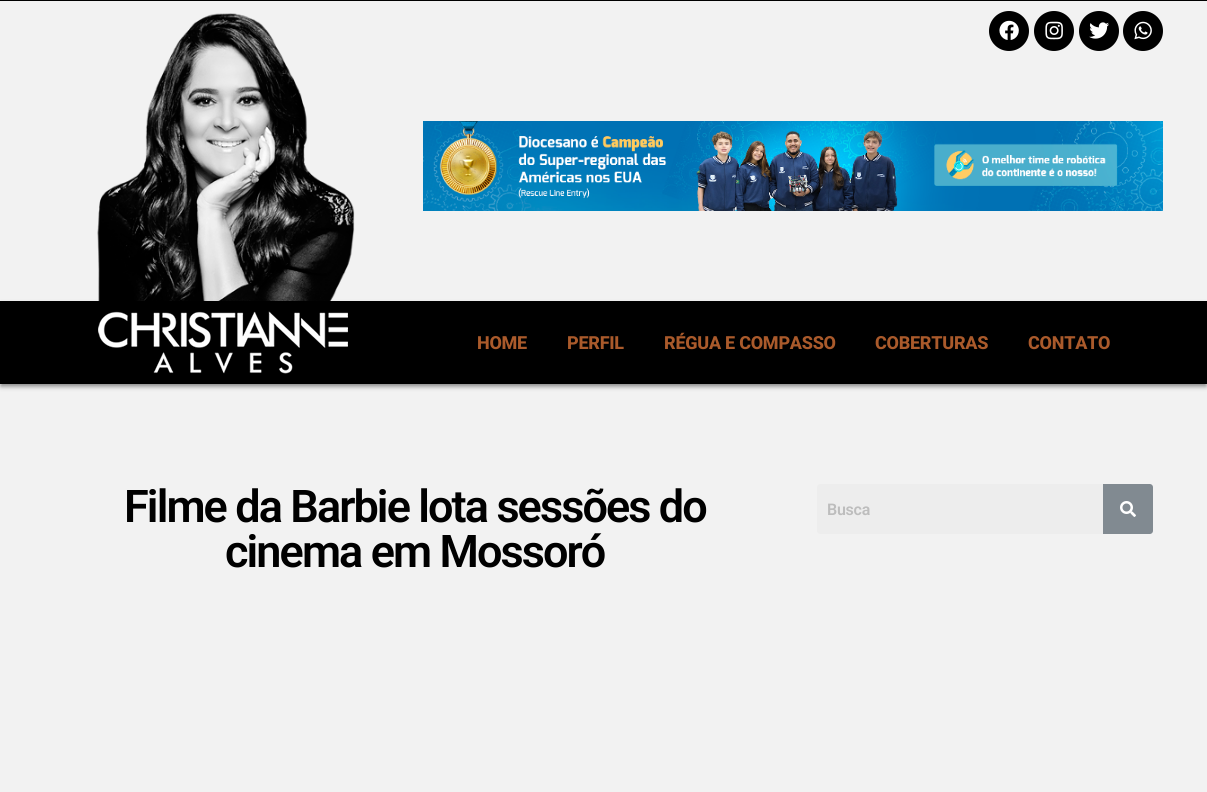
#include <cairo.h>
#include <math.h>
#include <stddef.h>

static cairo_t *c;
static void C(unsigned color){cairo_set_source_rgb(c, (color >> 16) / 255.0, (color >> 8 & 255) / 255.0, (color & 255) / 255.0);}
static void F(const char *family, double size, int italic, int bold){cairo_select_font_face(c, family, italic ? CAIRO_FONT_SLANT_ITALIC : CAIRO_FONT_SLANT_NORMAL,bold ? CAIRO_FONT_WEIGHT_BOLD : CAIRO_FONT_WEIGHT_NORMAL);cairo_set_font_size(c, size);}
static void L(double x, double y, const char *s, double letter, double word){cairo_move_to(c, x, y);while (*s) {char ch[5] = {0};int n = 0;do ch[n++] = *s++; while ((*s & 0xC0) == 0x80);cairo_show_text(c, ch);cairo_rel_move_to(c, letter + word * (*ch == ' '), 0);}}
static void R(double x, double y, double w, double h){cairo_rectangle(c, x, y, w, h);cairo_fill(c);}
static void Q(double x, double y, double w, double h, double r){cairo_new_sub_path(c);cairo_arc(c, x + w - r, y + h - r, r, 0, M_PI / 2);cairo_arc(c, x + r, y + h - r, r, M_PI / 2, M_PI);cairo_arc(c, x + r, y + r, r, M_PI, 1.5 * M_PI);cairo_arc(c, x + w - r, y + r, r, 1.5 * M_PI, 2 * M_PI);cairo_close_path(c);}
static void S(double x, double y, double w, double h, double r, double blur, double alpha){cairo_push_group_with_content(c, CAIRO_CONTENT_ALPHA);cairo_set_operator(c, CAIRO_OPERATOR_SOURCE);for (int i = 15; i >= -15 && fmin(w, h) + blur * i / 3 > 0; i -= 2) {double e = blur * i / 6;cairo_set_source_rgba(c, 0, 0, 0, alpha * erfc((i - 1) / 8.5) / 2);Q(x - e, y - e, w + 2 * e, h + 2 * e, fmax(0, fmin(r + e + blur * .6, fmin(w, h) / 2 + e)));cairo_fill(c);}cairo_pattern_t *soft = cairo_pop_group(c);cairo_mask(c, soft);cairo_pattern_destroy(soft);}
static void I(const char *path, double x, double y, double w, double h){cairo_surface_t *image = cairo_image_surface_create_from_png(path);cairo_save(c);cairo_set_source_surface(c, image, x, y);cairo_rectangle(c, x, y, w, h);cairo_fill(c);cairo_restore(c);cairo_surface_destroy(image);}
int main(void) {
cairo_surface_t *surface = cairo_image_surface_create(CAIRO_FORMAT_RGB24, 1207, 792);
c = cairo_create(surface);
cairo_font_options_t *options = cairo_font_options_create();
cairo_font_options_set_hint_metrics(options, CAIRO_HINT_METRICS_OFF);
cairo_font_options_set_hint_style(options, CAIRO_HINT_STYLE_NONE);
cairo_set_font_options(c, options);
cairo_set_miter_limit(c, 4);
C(0xf2f2f2);
cairo_paint(c);
C(0x000000);
R(0,0,1207,1);
I("1.png",97,13,258,288);
cairo_arc(c,1009,31,20,0,2 * M_PI);
cairo_fill(c);
I("2.png",999,20,20,20);
cairo_arc(c,1054,31,20,0,2 * M_PI);
cairo_fill(c);
I("3.png",1045,21,18,19);
cairo_arc(c,1099,31,20,0,2 * M_PI);
cairo_fill(c);
I("4.png",1089,22,20,17);
cairo_arc(c,1143,31,20,0,2 * M_PI);
cairo_fill(c);
I("5.png",1134,21,18,19);
I("6.png",423,121,740,90);
C(0x000000);
S(1,305,1205,81,0,2.5,.5);
C(0x000000);
R(0,301,1207,83);
I("7.png",98,311,250,63);
F("Roboto ExtraBold",18,0,0);
C(0xaa5a2b);
L(477,349,"HOME",-.25,0);
L(567,349,"PERFIL",-.25,0);
L(664,349,"RÉGUA E COMPASSO",-.25,0);
L(875,349,"COBERTURAS",-.25,0);
L(1028,349,"CONTATO",-.25,0);
F("Roboto SemiBold",45,0,0);
C(0x000000);
L(124,522,"Filme da Barbie lota sessões do",-1.9,0);
L(225,567,"cinema em Mossoró",-1.9,0);
C(0xededed);
cairo_new_path(c);
cairo_move_to(c,820,484);
cairo_line_to(c,1103,484);
cairo_line_to(c,1103,534);
cairo_line_to(c,820,534);
cairo_curve_to(c,818.5,534,817,532.5,817,531);
cairo_line_to(c,817,487);
cairo_curve_to(c,817,485.5,818.5,484,820,484);
cairo_close_path(c);
cairo_fill(c);
F("Roboto SemiBold",16,0,0);
C(0xbdbdbd);
L(827,515,"Busca",-.25,0);
C(0x818a91);
cairo_new_path(c);
cairo_move_to(c,1103,484);
cairo_line_to(c,1150,484);
cairo_curve_to(c,1151.5,484,1153,485.5,1153,487);
cairo_line_to(c,1153,531);
cairo_curve_to(c,1153,532.5,1151.5,534,1150,534);
cairo_line_to(c,1103,534);
cairo_close_path(c);
cairo_fill(c);
I("8.png",1120,501,16,16);
cairo_surface_write_to_png(surface, "o.png");
cairo_font_options_destroy(options);
cairo_destroy(c);
cairo_surface_destroy(surface);
return 0;
}
